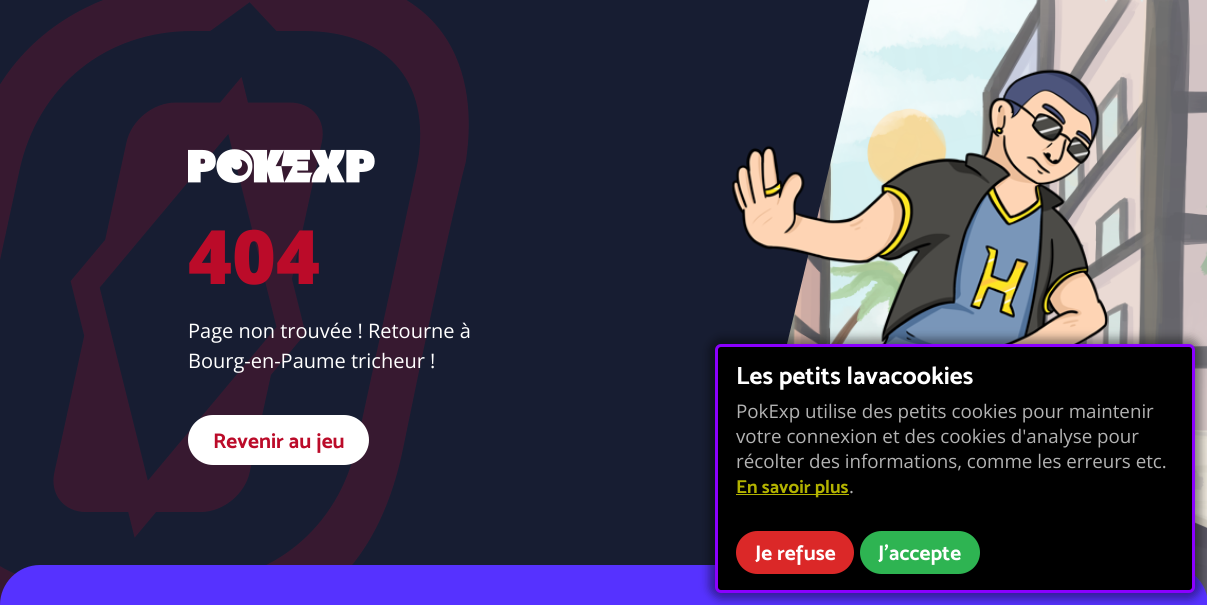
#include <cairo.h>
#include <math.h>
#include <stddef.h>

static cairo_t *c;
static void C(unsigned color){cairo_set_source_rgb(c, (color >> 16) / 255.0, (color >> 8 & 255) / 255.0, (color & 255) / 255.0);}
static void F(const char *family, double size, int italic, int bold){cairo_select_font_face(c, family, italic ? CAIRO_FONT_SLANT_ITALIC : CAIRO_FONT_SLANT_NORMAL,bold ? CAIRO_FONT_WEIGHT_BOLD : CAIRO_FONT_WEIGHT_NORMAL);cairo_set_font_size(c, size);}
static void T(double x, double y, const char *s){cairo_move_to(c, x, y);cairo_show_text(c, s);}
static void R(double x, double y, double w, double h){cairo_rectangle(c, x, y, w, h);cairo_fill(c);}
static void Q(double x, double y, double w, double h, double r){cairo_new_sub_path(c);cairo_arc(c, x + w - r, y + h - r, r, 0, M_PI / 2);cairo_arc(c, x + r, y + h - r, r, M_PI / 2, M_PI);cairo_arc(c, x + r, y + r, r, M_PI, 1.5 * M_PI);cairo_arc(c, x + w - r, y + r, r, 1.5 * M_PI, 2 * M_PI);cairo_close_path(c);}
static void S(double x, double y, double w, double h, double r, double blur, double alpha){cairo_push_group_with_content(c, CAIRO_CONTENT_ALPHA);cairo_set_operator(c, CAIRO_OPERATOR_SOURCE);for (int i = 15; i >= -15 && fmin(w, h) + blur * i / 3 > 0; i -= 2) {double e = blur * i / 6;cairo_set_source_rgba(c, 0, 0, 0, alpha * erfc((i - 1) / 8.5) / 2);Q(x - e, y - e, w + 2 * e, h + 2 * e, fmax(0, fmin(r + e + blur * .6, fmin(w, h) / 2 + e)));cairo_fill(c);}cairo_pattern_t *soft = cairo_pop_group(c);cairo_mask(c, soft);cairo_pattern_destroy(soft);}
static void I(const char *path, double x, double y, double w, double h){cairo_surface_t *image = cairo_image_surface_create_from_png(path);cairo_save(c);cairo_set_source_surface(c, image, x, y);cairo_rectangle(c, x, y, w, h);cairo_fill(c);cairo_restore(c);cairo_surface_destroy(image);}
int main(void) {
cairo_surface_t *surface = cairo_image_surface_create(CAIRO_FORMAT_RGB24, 1207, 605);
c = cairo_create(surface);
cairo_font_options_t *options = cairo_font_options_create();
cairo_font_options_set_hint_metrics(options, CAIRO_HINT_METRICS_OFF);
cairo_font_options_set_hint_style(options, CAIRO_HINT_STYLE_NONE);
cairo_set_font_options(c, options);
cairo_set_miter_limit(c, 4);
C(0x171d32);
cairo_paint(c);
I("1.png",0,0,469,605);
I("2.png",188,149,187,34);
F("Open Sans ExtraBold",75,0,0);
C(0xbb0b29);
T(188,284,"404");
F("Open Sans",20,0,0);
C(0xffffff);
T(188,338,"Page non trouvée ! Retourne à");
T(188,368,"Bourg-en-Paume tricheur !");
Q(188,415,181,50,25);
cairo_fill(c);
F("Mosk",21.25,0,1);
C(0xbb0b29);
T(213,448,"Revenir au jeu");
I("3.png",787,0,420,597);
I("4.png",731,69,378,275);
C(0x5632ff);
cairo_new_path(c);
cairo_move_to(c,40,565);
cairo_line_to(c,1168,565);
cairo_curve_to(c,1190,565,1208,583,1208,605);
cairo_line_to(c,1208,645);
cairo_line_to(c,0,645);
cairo_line_to(c,0,605);
cairo_curve_to(c,0,583,18,565,40,565);
cairo_close_path(c);
cairo_fill(c);
C(0x000000);
S(709,338,492,261,13,4.5,.4);
C(0x000000);
Q(716.5,345.5,477,246,4.5);
cairo_fill_preserve(c);
C(0x8b00ff);
cairo_set_line_width(c,3);
cairo_stroke(c);
F("Mosk",25,0,1);
C(0xffffff);
T(736,384,"Les petits lavacookies");
F("Open Sans",18.75,0,0);
C(0xb3b3b3);
T(736,418,"PokExp utilise des petits cookies pour maintenir");
T(736,443,"votre connexion et des cookies d'analyse pour");
T(736,468,"récolter des informations, comme les erreurs etc.");
C(0xb3b300);
R(736,494,113,1);
F("Mosk",18.75,0,1);
T(736,493,"En savoir plus");
F("Open Sans",18.75,0,0);
C(0xb3b3b3);
T(849,493,".");
C(0xdb2828);
Q(736,531,118,43,21.5);
cairo_fill(c);
F("Mosk",21.25,0,1);
C(0xffffff);
T(755,560,"Je refuse");
C(0x2eb452);
Q(860,531,120,43,21.5);
cairo_fill(c);
C(0xffffff);
T(878,560,"J'accepte");
cairo_surface_write_to_png(surface, "o.png");
cairo_font_options_destroy(options);
cairo_destroy(c);
cairo_surface_destroy(surface);
return 0;
}
